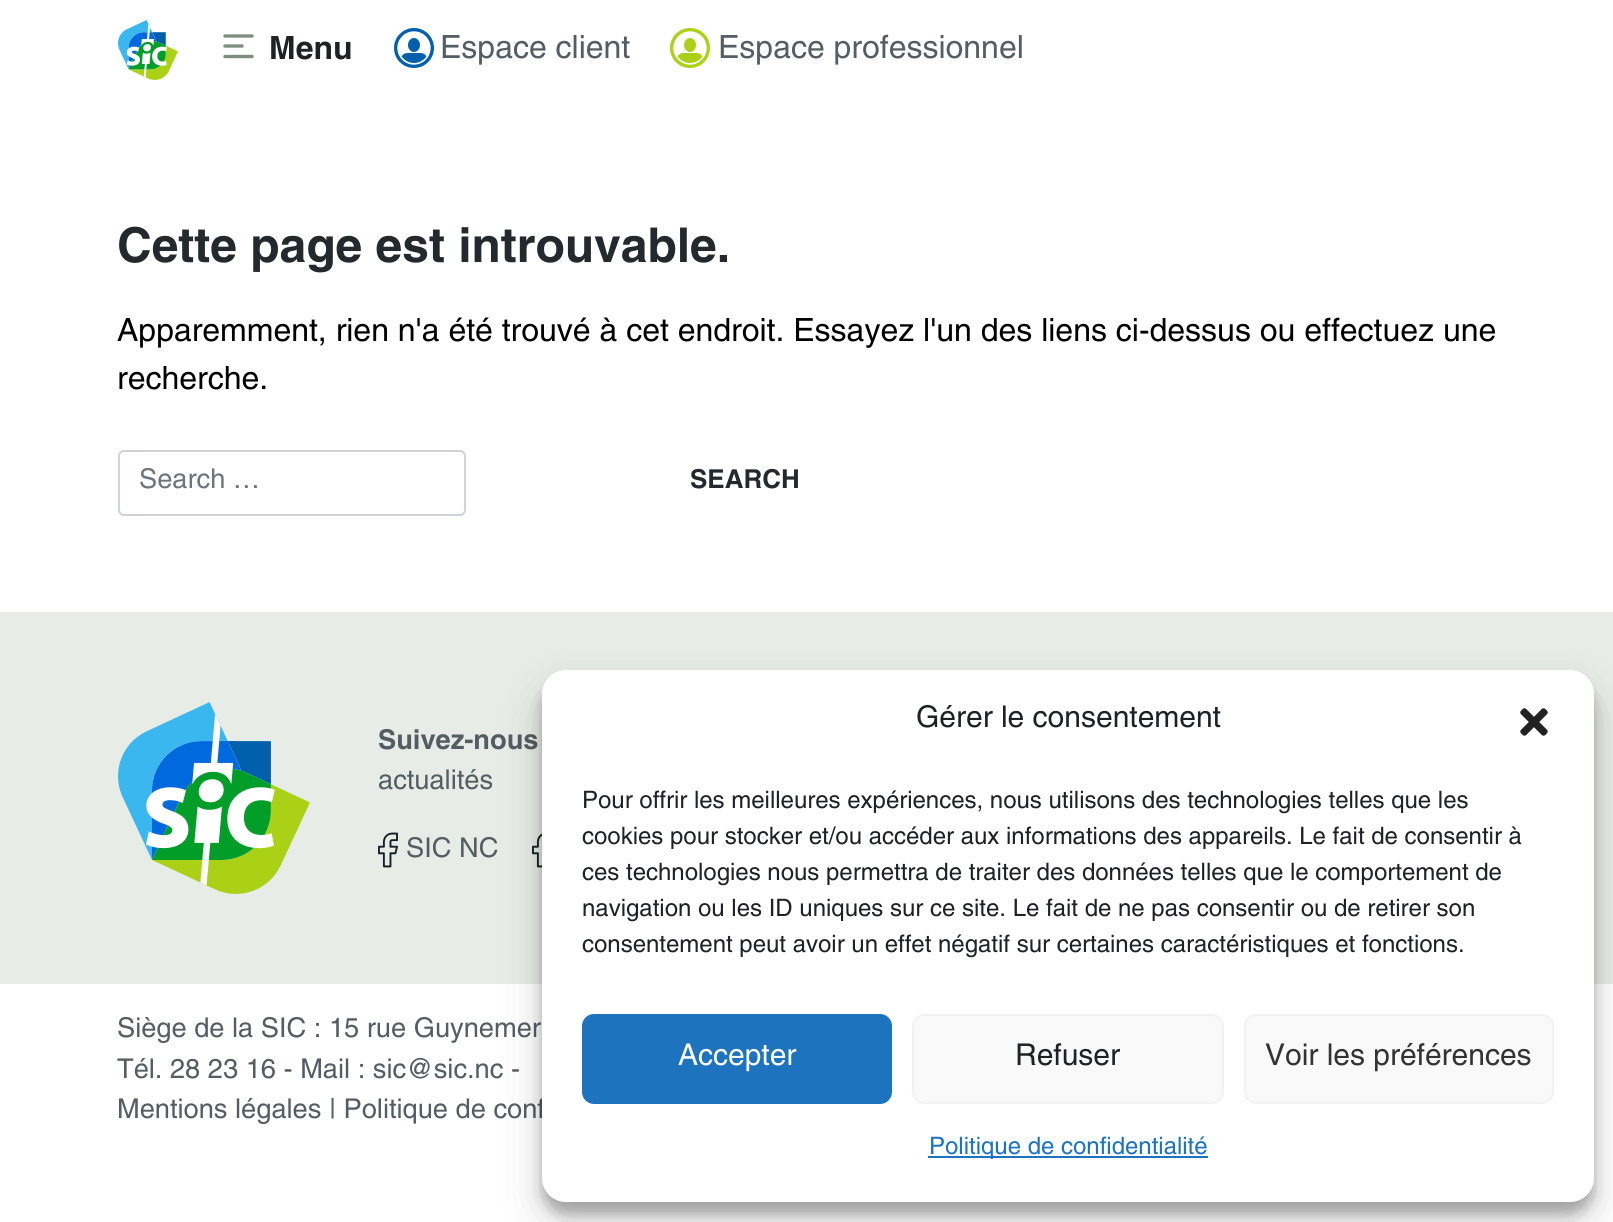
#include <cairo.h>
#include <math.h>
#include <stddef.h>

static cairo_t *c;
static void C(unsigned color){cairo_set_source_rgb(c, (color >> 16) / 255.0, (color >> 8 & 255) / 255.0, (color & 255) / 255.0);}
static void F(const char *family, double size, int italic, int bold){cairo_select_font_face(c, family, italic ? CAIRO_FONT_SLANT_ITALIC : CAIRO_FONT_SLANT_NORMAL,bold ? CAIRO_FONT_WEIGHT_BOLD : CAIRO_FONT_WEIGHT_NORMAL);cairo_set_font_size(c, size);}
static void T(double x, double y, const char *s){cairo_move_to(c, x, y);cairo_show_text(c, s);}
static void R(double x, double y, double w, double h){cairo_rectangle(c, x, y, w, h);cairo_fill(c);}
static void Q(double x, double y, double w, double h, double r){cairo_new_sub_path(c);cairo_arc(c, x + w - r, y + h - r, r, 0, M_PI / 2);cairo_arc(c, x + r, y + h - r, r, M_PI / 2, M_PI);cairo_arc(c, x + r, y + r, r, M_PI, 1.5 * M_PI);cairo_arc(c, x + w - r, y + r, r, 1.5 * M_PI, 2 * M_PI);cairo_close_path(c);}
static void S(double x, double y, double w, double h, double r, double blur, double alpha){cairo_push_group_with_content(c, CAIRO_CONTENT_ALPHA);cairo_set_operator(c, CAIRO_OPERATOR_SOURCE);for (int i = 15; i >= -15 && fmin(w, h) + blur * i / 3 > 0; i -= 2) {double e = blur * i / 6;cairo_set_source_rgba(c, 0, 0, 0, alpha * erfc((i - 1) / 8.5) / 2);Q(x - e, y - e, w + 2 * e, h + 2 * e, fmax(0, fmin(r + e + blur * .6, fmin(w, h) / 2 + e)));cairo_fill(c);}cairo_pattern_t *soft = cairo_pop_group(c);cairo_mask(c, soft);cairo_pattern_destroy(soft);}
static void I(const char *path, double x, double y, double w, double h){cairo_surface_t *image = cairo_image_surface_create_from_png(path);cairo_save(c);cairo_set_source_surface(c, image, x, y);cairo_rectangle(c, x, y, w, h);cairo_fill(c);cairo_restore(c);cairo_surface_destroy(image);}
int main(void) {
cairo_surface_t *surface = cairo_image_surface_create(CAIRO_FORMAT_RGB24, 1613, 1222);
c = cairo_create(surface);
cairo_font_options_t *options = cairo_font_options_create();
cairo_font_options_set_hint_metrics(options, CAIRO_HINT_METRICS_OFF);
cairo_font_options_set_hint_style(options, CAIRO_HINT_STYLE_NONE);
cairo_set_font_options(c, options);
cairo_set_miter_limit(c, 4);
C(0xffffff);
cairo_paint(c);
I("1.png",118,20,60,60);
cairo_new_path(c);
cairo_move_to(c,225,36);
cairo_line_to(c,252,36);
cairo_move_to(c,225,46);
cairo_line_to(c,242,46);
cairo_move_to(c,225,56.5);
cairo_line_to(c,252,56.5);
C(0x7d8e7f);
cairo_set_line_width(c,3.4);
cairo_set_line_cap(c,CAIRO_LINE_CAP_ROUND);
cairo_stroke(c);
F("Helvetica",32,0,1);
C(0x202124);
T(269,59,"Menu");
I("2.png",394,28,40,40);
F("Helvetica",32,0,0);
C(0x545d63);
T(440,58,"Espace client");
I("3.png",670,28,40,40);
T(718,58,"Espace professionnel");
F("Helvetica",48,0,1);
C(0x24292e);
T(117,262,"Cette page est introuvable.");
F("Helvetica",32,0,0);
C(0x000000);
T(117,341,"Apparemment, rien n'a été trouvé à cet endroit. Essayez l'un des liens ci-dessus ou effectuez une");
T(117,389,"recherche.");
Q(119,451,346,64,5);
C(0xced4da);
cairo_set_line_width(c,2);
cairo_set_line_cap(c,CAIRO_LINE_CAP_BUTT);
cairo_stroke(c);
F("Helvetica",27.25,0,0);
C(0x6c757d);
T(139,488,"Search …");
F("Helvetica",26,0,1);
C(0x24292e);
T(690,488,"SEARCH");
C(0xe7ece7);
R(0,612,1613,372);
I("4.png",118,702,192,192);
F("Helvetica",27.25,0,1);
C(0x545d63);
T(378,749,"Suivez-nous");
F("Helvetica",27.25,0,0);
T(378,789,"actualités");
I("5.png",378,832,20,36);
T(406,857,"SIC NC");
I("6.png",532,833,10,35);
T(117,1037,"Siège de la SIC : 15 rue Guynemer");
T(117,1078,"Tél. 28 23 16 - Mail : sic@sic.nc -");
T(117,1118,"Mentions légales | Politique de conf");
C(0x000000);
S(542,682,1052,532,24,6,.23);
S(542,690,1052,532,24,20,.19);
C(0xffffff);
Q(542,670,1052,532,24);
cairo_fill(c);
F("Helvetica",30,0,0);
C(0x202124);
T(916,727,"Gérer le consentement");
I("7.png",1520,708,28,28);
F("Helvetica",24,0,0);
T(582,808,"Pour offrir les meilleures expériences, nous utilisons des technologies telles que les");
T(582,844,"cookies pour stocker et/ou accéder aux informations des appareils. Le fait de consentir à");
T(582,880,"ces technologies nous permettra de traiter des données telles que le comportement de");
T(582,916,"navigation ou les ID uniques sur ce site. Le fait de ne pas consentir ou de retirer son");
T(582,952,"consentement peut avoir un effet négatif sur certaines caractéristiques et fonctions.");
C(0x1e73be);
Q(583,1015,308,88,11);
cairo_fill_preserve(c);
cairo_stroke(c);
F("Helvetica",30,0,0);
C(0xffffff);
T(678,1065,"Accepter");
C(0xf9f9f9);
Q(913,1015,310,88,11);
cairo_fill_preserve(c);
C(0xf2f2f2);
cairo_stroke(c);
C(0x202124);
T(1015,1065,"Refuser");
C(0xf9f9f9);
Q(1245,1015,308,88,11);
cairo_fill_preserve(c);
C(0xf2f2f2);
cairo_stroke(c);
C(0x333333);
T(1265,1065,"Voir les préférences");
C(0x1e73be);
R(928,1156,280,2);
F("Helvetica",24,0,0);
T(929,1154,"Politique de confidentialité");
cairo_surface_write_to_png(surface, "o.png");
cairo_font_options_destroy(options);
cairo_destroy(c);
cairo_surface_destroy(surface);
return 0;
}
